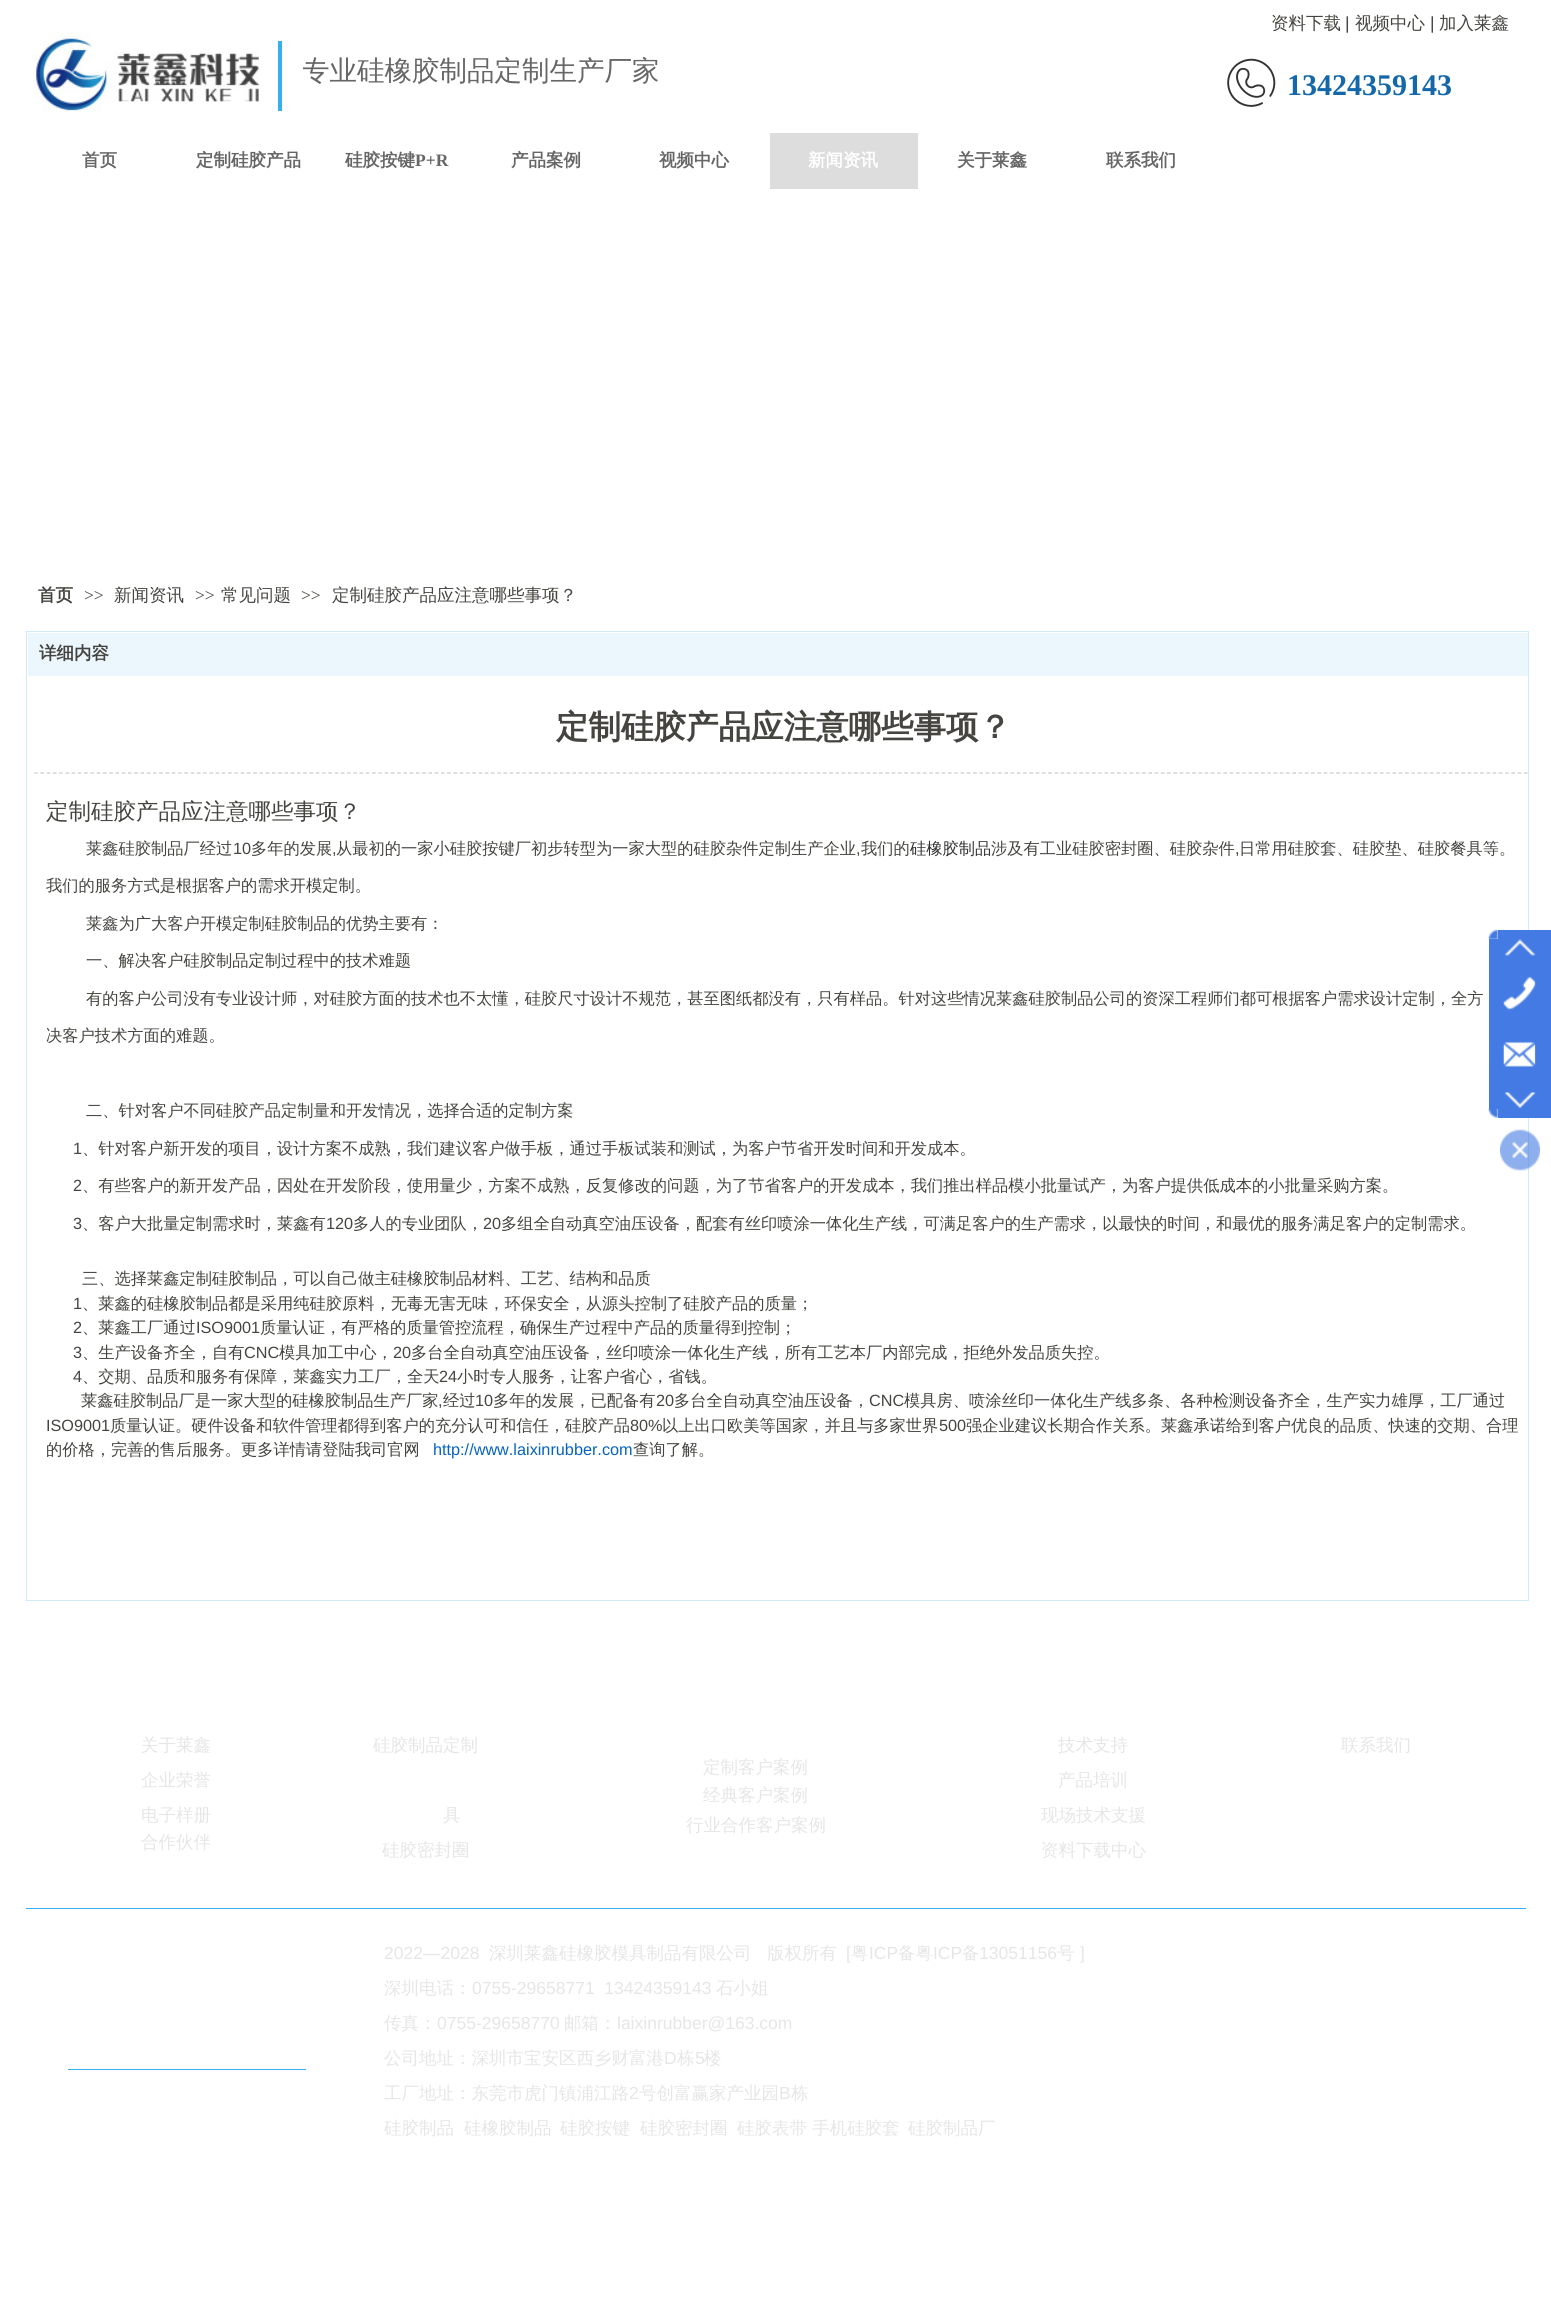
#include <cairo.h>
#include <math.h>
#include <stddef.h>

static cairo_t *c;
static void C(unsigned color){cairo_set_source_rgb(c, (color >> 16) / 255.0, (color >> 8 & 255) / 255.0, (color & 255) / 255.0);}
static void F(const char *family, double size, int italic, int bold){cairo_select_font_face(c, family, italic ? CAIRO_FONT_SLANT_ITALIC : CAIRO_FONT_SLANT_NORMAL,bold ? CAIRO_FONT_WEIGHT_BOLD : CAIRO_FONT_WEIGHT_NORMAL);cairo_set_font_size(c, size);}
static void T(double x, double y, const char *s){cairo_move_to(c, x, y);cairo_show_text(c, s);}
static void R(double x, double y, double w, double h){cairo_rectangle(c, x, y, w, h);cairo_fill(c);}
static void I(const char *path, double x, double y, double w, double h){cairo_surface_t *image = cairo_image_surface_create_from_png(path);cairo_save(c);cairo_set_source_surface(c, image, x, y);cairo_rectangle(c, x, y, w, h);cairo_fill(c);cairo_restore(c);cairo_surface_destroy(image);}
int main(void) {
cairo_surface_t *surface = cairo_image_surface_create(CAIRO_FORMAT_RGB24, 1551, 2306);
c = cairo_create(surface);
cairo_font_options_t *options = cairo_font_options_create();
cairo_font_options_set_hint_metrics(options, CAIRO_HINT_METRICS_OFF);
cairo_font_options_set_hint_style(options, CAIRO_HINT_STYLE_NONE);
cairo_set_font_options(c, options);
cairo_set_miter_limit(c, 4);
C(0xffffff);
cairo_paint(c);
F("WenQuanYi Zen Hei Medium",17.5,0,0);
C(0x454440);
T(1271,29,"资料下载");
F("Liberation Sans",17.5,0,0);
T(1345,29,"|");
F("WenQuanYi Zen Hei Medium",17.5,0,0);
T(1355,29,"视频中心");
F("Liberation Sans",17.5,0,0);
T(1430,29,"|");
F("WenQuanYi Zen Hei Medium",17.5,0,0);
T(1439,29,"加入莱鑫");
I("1.png",33,31,226,80);
C(0x36b0f3);
R(278,41,4,70);
cairo_save(c);
cairo_rectangle(c,303,54,611,52);
cairo_clip(c);
F("WenQuanYi Zen Hei Medium",27.5,0,0);
C(0x666666);
T(302,80,"专业硅橡胶制品定制生产厂家");
cairo_restore(c);
I("2.png",1227,58,49,49);
F("Liberation Serif",30,0,1);
C(0x1468a9);
T(1287,95,"13424359143");
F("WenQuanYi Zen Hei",17.5,0,1);
C(0x666666);
T(82,166,"首页");
T(196,166,"定制硅胶产品");
T(345,166,"硅胶按键");
F("Liberation Serif",17.5,0,1);
T(415,166,"P+R");
F("WenQuanYi Zen Hei",17.5,0,1);
T(511,166,"产品案例");
T(659,166,"视频中心");
C(0xdddddd);
R(770,133,148,56);
C(0xffffff);
T(808,166,"新闻资讯");
C(0x666666);
T(957,166,"关于莱鑫");
T(1106,166,"联系我们");
C(0x454440);
T(38,601,"首页");
F("Liberation Serif",17.5,0,0);
T(84,601,">>");
F("WenQuanYi Zen Hei Medium",17.5,0,0);
T(114,601,"新闻资讯");
F("Liberation Serif",17.5,0,0);
T(195,601,">>");
F("WenQuanYi Zen Hei Medium",17.5,0,0);
T(221,601,"常见问题");
F("Liberation Serif",17.5,0,0);
T(301,601,">>");
F("WenQuanYi Zen Hei Medium",17.5,0,0);
T(332,601,"定制硅胶产品应注意哪些事项？");
cairo_rectangle(c,26.5,631.5,1502,969);
C(0xcfebf6);
cairo_set_line_width(c,1);
cairo_stroke(c);
C(0xecf7fd);
R(28,633,1500,43);
F("WenQuanYi Zen Hei",17.5,0,1);
C(0x454440);
T(39,659,"详细内容");
cairo_save(c);
cairo_rectangle(c,34,683,1494,911);
cairo_clip(c);
cairo_new_path(c);
cairo_move_to(c,34,773);
cairo_line_to(c,1534,773);
C(0xcccccc);
cairo_set_line_width(c,1.2);
cairo_set_dash(c,(double[]){3.75,2.51},2,0);
cairo_stroke(c);
cairo_restore(c);
F("WenQuanYi Zen Hei",32.5,0,1);
T(556,738,"定制硅胶产品应注意哪些事项？");
F("WenQuanYi Zen Hei Medium",22.5,0,0);
T(46,819,"定制硅胶产品应注意哪些事项？");
F("WenQuanYi Zen Hei Medium",16.25,0,0);
T(86,854,"莱鑫硅胶制品厂经过");
F("Liberation Sans",16.25,0,0);
T(233,854,"10");
F("WenQuanYi Zen Hei Medium",16.25,0,0);
T(251,854,"多年的发展");
F("Liberation Sans",16.25,0,0);
T(332,854,",");
F("WenQuanYi Zen Hei Medium",16.25,0,0);
T(336,854,"从最初的一家小硅胶按键厂初步转型为一家大型的硅胶杂件定制生产企业");
F("Liberation Sans",16.25,0,0);
T(856,854,",");
F("WenQuanYi Zen Hei Medium",16.25,0,0);
T(861,854,"我们的");
C(0x333333);
T(910,854,"硅橡胶制品");
C(0x454440);
T(991,854,"涉及有工业硅胶密封圈、硅胶杂件");
F("Liberation Sans",16.25,0,0);
T(1235,854,",");
F("WenQuanYi Zen Hei Medium",16.25,0,0);
T(1239,854,"日常用硅胶套、硅胶垫、硅胶餐具等。");
T(46,891,"我们的服务方式是根据客户的需求开模定制。");
T(86,929,"莱鑫为广大客户开模定制硅胶制品的优势主要有：");
T(86,966,"一、解决客户硅胶制品定制过程中的技术难题");
T(86,1004,"有的客户公司没有专业设计师，对硅胶方面的技术也不太懂，硅胶尺寸设计不规范，甚至图纸都没有，只有样品。针对这些情况莱鑫硅胶制品公司的资深工程师们都可根据客户需求设计定制，全方");
T(46,1041,"决客户技术方面的难题。");
T(86,1116,"二、针对客户不同硅胶产品定制量和开发情况，选择合适的定制方案");
F("Liberation Sans",16.25,0,0);
T(73,1154,"1");
F("WenQuanYi Zen Hei Medium",16.25,0,0);
T(82,1154,"、针对客户新开发的项目，设计方案不成熟，我们建议客户做手板，通过手板试装和测试，为客户节省开发时间和开发成本。");
F("Liberation Sans",16.25,0,0);
T(73,1191,"2");
F("WenQuanYi Zen Hei Medium",16.25,0,0);
T(82,1191,"、有些客户的新开发产品，因处在开发阶段，使用量少，方案不成熟，反复修改的问题，为了节省客户的开发成本，我们推出样品模小批量试产，为客户提供低成本的小批量采购方案。");
F("Liberation Sans",16.25,0,0);
T(73,1229,"3");
F("WenQuanYi Zen Hei Medium",16.25,0,0);
T(82,1229,"、客户大批量定制需求时，莱鑫有");
F("Liberation Sans",16.25,0,0);
T(326,1229,"120");
F("WenQuanYi Zen Hei Medium",16.25,0,0);
T(353,1229,"多人的专业团队，");
F("Liberation Sans",16.25,0,0);
T(483,1229,"20");
F("WenQuanYi Zen Hei Medium",16.25,0,0);
T(501,1229,"多组全自动真空油压设备，配套有丝印喷涂一体化生产线，可满足客户的生产需求，以最快的时间，和最优的服务满足客户的定制需求。");
T(82,1284,"三、选择莱鑫定制硅胶制品，可以自己做主硅橡胶制品材料、工艺、结构和品质");
F("Liberation Sans",16.25,0,0);
T(73,1309,"1");
F("WenQuanYi Zen Hei Medium",16.25,0,0);
T(82,1309,"、莱鑫的硅橡胶制品都是采用纯硅胶原料，无毒无害无味，环保安全，从源头控制了硅胶产品的质量；");
F("Liberation Sans",16.25,0,0);
T(73,1333,"2");
F("WenQuanYi Zen Hei Medium",16.25,0,0);
T(82,1333,"、莱鑫工厂通过");
F("Liberation Sans",16.25,0,0);
T(196,1333,"ISO9001");
F("WenQuanYi Zen Hei Medium",16.25,0,0);
T(260,1333,"质量认证，有严格的质量管控流程，确保生产过程中产品的质量得到控制；");
F("Liberation Sans",16.25,0,0);
T(73,1358,"3");
F("WenQuanYi Zen Hei Medium",16.25,0,0);
T(82,1358,"、生产设备齐全，自有");
F("Liberation Sans",16.25,0,0);
T(244,1358,"CNC");
F("WenQuanYi Zen Hei Medium",16.25,0,0);
T(279,1358,"模具加工中心，");
F("Liberation Sans",16.25,0,0);
T(393,1358,"20");
F("WenQuanYi Zen Hei Medium",16.25,0,0);
T(411,1358,"多台全自动真空油压设备，丝印喷涂一体化生产线，所有工艺本厂内部完成，拒绝外发品质失控。");
F("Liberation Sans",16.25,0,0);
T(73,1382,"4");
F("WenQuanYi Zen Hei Medium",16.25,0,0);
T(82,1382,"、交期、品质和服务有保障，莱鑫实力工厂，全天");
F("Liberation Sans",16.25,0,0);
T(439,1382,"24");
F("WenQuanYi Zen Hei Medium",16.25,0,0);
T(457,1382,"小时专人服务，让客户省心，省钱。");
T(81,1406,"莱鑫硅胶制品厂是一家大型的硅橡胶制品生产厂家");
F("Liberation Sans",16.25,0,0);
T(438,1406,",");
F("WenQuanYi Zen Hei Medium",16.25,0,0);
T(443,1406,"经过");
F("Liberation Sans",16.25,0,0);
T(475,1406,"10");
F("WenQuanYi Zen Hei Medium",16.25,0,0);
T(493,1406,"多年的发展，已配备有");
F("Liberation Sans",16.25,0,0);
T(656,1406,"20");
F("WenQuanYi Zen Hei Medium",16.25,0,0);
T(674,1406,"多台全自动真空油压设备，");
F("Liberation Sans",16.25,0,0);
T(869,1406,"CNC");
F("WenQuanYi Zen Hei Medium",16.25,0,0);
T(904,1406,"模具房、喷涂丝印一体化生产线多条、各种检测设备齐全，生产实力雄厚，工厂通过");
F("Liberation Sans",16.25,0,0);
T(46,1431,"ISO9001");
F("WenQuanYi Zen Hei Medium",16.25,0,0);
T(110,1431,"质量认证。硬件设备和软件管理都得到客户的充分认可和信任，硅胶产品");
F("Liberation Sans",16.25,0,0);
T(630,1431,"80%");
F("WenQuanYi Zen Hei Medium",16.25,0,0);
T(662,1431,"以上出口欧美等国家，并且与多家世界");
F("Liberation Sans",16.25,0,0);
T(939,1431,"500");
F("WenQuanYi Zen Hei Medium",16.25,0,0);
T(966,1431,"强企业建议长期合作关系。莱鑫承诺给到客户优良的品质、快速的交期、合理");
T(46,1455,"的价格，完善的售后服务。更多详情请登陆我司官网");
F("Liberation Sans",16.25,0,0);
C(0x0563c1);
T(433,1455,"http://www.laixinrubber.com");
F("WenQuanYi Zen Hei Medium",16.25,0,0);
C(0x454440);
T(633,1455,"查询了解。");
I("3.png",1488,929,10,10);
C(0x437ae3);
R(1498,930,53,9);
R(1489,939,62,170);
I("4.png",1505,939,31,17);
I("5.png",1503,976,33,34);
I("6.png",1503,1041,33,26);
I("7.png",1505,1092,31,17);
I("8.png",1488,1108,10,10);
R(1498,1109,53,9);
I("9.png",1500,1129,40,42);
F("WenQuanYi Zen Hei Medium",17.5,0,0);
C(0xe6e6e6);
T(141,1751,"关于莱鑫");
T(141,1786,"企业荣誉");
T(141,1821,"电子样册");
T(141,1848,"合作伙伴");
T(373,1751,"硅胶制品定制");
T(443,1821,"具");
T(382,1856,"硅胶密封圈");
T(1058,1751,"技术支持");
T(1058,1786,"产品培训");
T(1041,1821,"现场技术支援");
T(1041,1856,"资料下载中心");
T(1341,1751,"联系我们");
T(703,1773,"定制客户案例");
T(703,1801,"经典客户案例");
T(686,1831,"行业合作客户案例");
C(0x36b0f3);
R(26,1908,1500,1);
R(68,2069,238,1);
F("Liberation Sans",17.5,0,0);
C(0xe6e6e6);
T(384,1959,"2022—2028");
F("WenQuanYi Zen Hei Medium",17.5,0,0);
T(489,1959,"深圳莱鑫硅橡胶模具制品有限公司");
T(767,1959,"版权所有");
F("Liberation Sans",17.5,0,0);
T(846,1959,"[");
F("WenQuanYi Zen Hei Medium",17.5,0,0);
T(851,1959,"粤");
F("Liberation Sans",17.5,0,0);
T(869,1959,"ICP");
F("WenQuanYi Zen Hei Medium",17.5,0,0);
T(898,1959,"备粤");
F("Liberation Sans",17.5,0,0);
T(933,1959,"ICP");
F("WenQuanYi Zen Hei Medium",17.5,0,0);
T(962,1959,"备");
F("Liberation Sans",17.5,0,0);
T(979,1959,"13051156");
F("WenQuanYi Zen Hei Medium",17.5,0,0);
T(1057,1959,"号");
F("Liberation Sans",17.5,0,0);
T(1080,1959,"]");
F("WenQuanYi Zen Hei Medium",17.5,0,0);
T(384,1994,"深圳电话：");
F("Liberation Sans",17.5,0,0);
T(472,1994,"0755-29658771  13424359143");
F("WenQuanYi Zen Hei Medium",17.5,0,0);
T(716,1994,"石小姐");
T(384,2029,"传真：");
F("Liberation Sans",17.5,0,0);
T(437,2029,"0755-29658770");
F("WenQuanYi Zen Hei Medium",17.5,0,0);
T(564,2029,"邮箱：");
F("Liberation Sans",17.5,0,0);
T(617,2029,"laixinrubber@163.com");
F("WenQuanYi Zen Hei Medium",17.5,0,0);
T(384,2064,"公司地址：深圳市宝安区西乡财富港");
F("Liberation Sans",17.5,0,0);
T(664,2064,"D");
F("WenQuanYi Zen Hei Medium",17.5,0,0);
T(677,2064,"栋");
F("Liberation Sans",17.5,0,0);
T(695,2064,"5");
F("WenQuanYi Zen Hei Medium",17.5,0,0);
T(704,2064,"楼");
T(384,2099,"工厂地址：东莞市虎门镇浦江路");
F("Liberation Sans",17.5,0,0);
T(629,2099,"2");
F("WenQuanYi Zen Hei Medium",17.5,0,0);
T(639,2099,"号创富赢家产业园");
F("Liberation Sans",17.5,0,0);
T(779,2099,"B");
F("WenQuanYi Zen Hei Medium",17.5,0,0);
T(791,2099,"栋");
T(384,2134,"硅胶制品");
T(464,2134,"硅橡胶制品");
T(560,2134,"硅胶按键");
T(640,2134,"硅胶密封圈");
T(737,2134,"硅胶表带 手机硅胶套");
T(908,2134,"硅胶制品厂");
cairo_surface_write_to_png(surface, "o.png");
cairo_font_options_destroy(options);
cairo_destroy(c);
cairo_surface_destroy(surface);
return 0;
}
